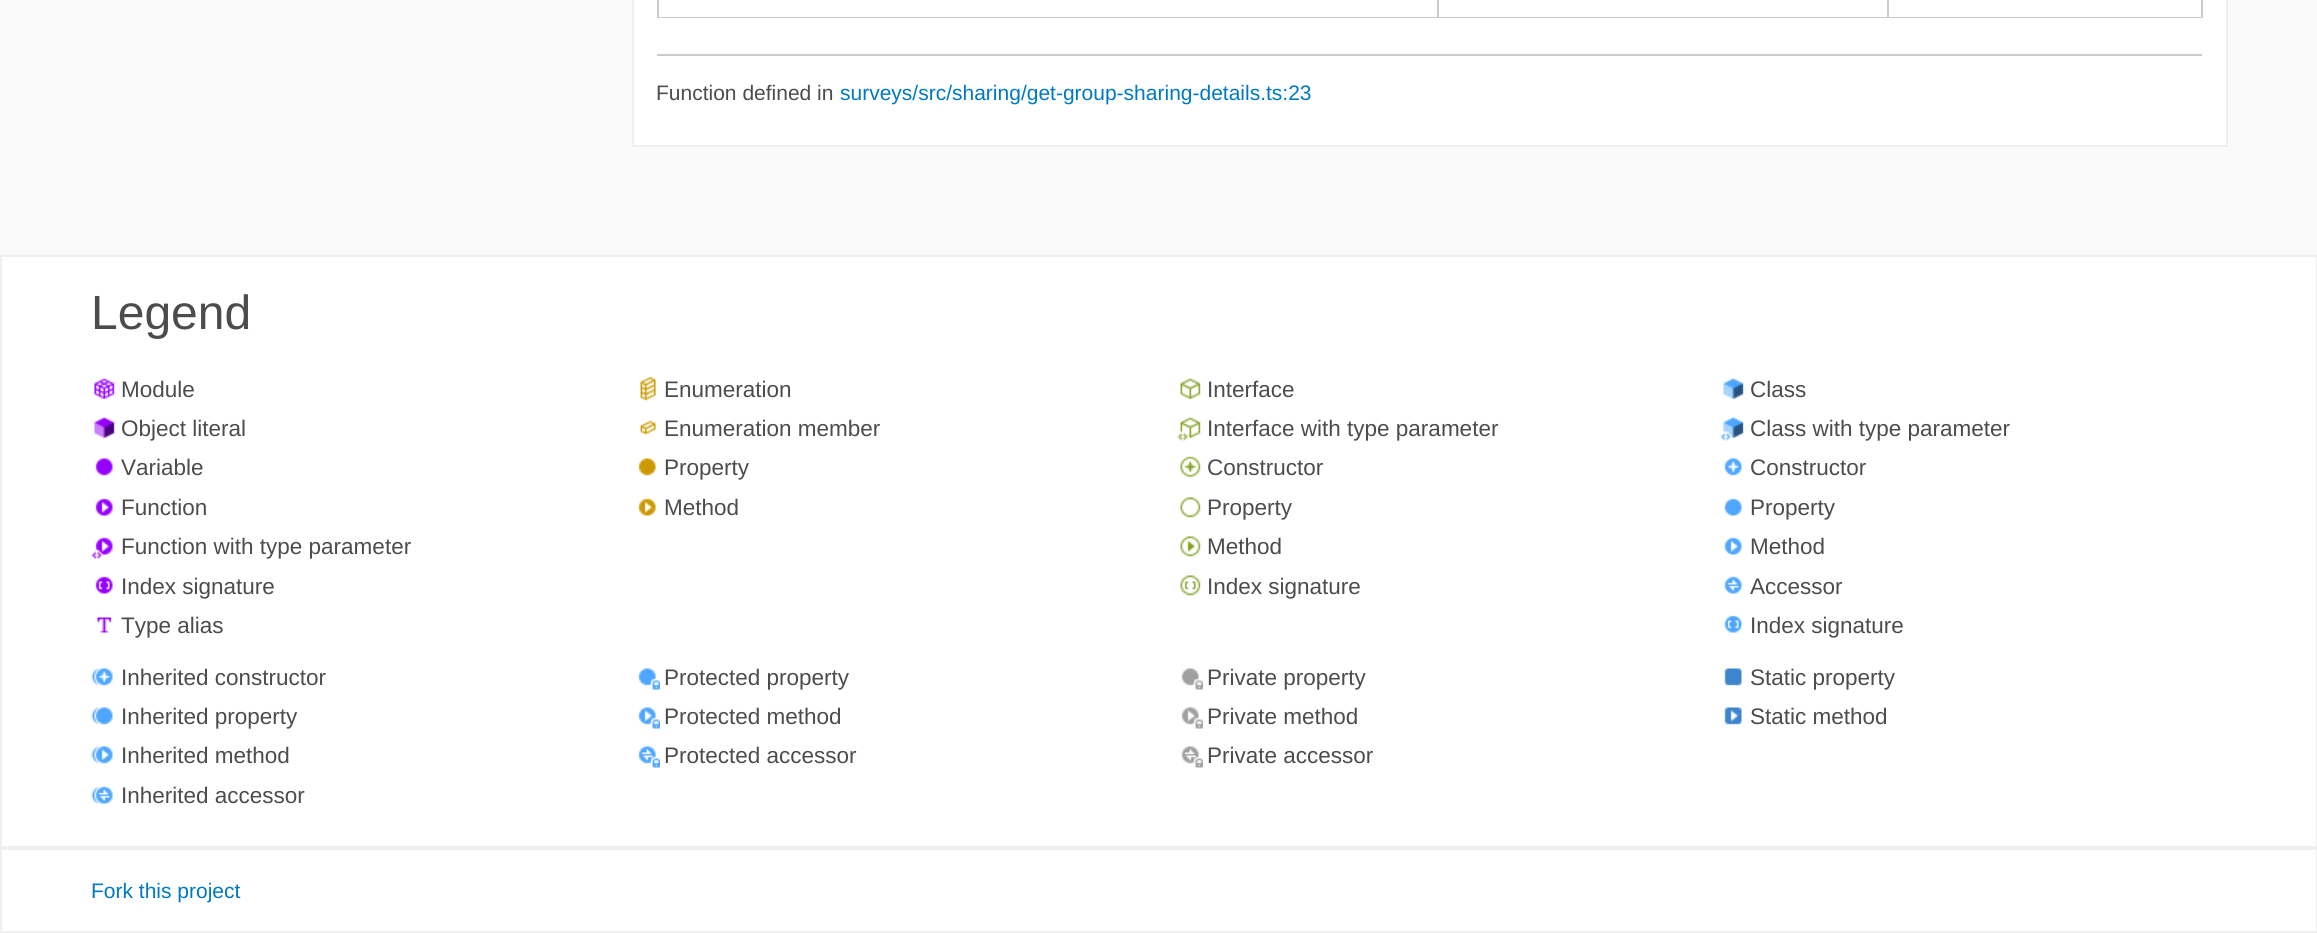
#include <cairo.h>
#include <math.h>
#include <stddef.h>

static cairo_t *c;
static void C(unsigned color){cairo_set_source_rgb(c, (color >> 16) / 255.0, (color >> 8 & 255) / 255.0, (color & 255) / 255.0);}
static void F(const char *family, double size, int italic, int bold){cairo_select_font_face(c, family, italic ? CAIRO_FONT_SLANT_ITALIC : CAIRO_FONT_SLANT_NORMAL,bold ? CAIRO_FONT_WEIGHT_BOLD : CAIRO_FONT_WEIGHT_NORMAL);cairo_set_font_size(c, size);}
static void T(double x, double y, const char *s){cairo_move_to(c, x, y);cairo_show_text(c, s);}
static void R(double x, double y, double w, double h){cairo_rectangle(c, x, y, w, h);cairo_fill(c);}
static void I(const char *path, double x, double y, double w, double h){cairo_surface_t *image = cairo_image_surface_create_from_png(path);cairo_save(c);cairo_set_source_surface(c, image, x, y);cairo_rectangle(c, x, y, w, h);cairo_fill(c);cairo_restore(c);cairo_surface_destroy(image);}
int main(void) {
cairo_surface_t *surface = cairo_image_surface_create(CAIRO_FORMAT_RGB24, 2317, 933);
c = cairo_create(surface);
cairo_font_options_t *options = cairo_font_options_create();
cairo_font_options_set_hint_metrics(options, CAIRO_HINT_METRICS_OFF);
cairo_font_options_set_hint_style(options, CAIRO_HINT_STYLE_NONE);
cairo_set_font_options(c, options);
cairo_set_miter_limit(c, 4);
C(0xfafafa);
cairo_paint(c);
C(0xffffff);
cairo_rectangle(c,633,-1,1594,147);
cairo_fill_preserve(c);
C(0xefefef);
cairo_stroke(c);
C(0xcccccc);
R(2201,0,2,18);
R(657,17,1545,1);
R(657,0,2,18);
R(1437,0,2,18);
R(1887,0,2,18);
R(657,54,1545,2);
F("Liberation Sans",21,0,0);
C(0x4c4c4c);
T(656,100,"Function defined in");
C(0x0079c1);
T(840,100,"surveys/src/sharing/get-group-sharing-details.ts:23");
C(0xffffff);
cairo_rectangle(c,1,256,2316,591);
cairo_fill_preserve(c);
C(0xefefef);
cairo_stroke(c);
F("Liberation Sans",48,0,0);
C(0x4c4c4c);
T(91,329,"Legend");
I("1.png",94,377,21,23);
F("Liberation Sans",22.5,0,0);
T(121,397,"Module");
I("2.png",94,416,21,23);
T(121,436,"Object literal");
I("3.png",95,458,18,18);
T(121,475,"Variable");
I("4.png",95,498,18,18);
T(121,515,"Function");
I("5.png",91,537,22,22);
T(121,554,"Function with type parameter");
I("6.png",95,576,18,18);
T(121,594,"Index signature");
I("7.png",97,617,15,16);
T(121,633,"Type alias");
I("8.png",640,376,16,25);
T(664,397,"Enumeration");
I("9.png",640,420,16,15);
T(664,436,"Enumeration member");
I("10.png",638,458,18,18);
T(664,475,"Property");
I("11.png",638,498,18,18);
T(664,515,"Method");
I("12.png",1180,377,21,23);
T(1207,397,"Interface");
I("13.png",1177,416,24,25);
T(1207,436,"Interface with type parameter");
I("14.png",1180,456,21,21);
T(1207,475,"Constructor");
I("15.png",1180,497,21,21);
T(1207,515,"Property");
I("16.png",1180,536,21,21);
T(1207,554,"Method");
I("17.png",1180,575,21,21);
T(1207,594,"Index signature");
I("18.png",1723,377,21,23);
T(1750,397,"Class");
I("19.png",1720,416,24,25);
T(1750,436,"Class with type parameter");
I("20.png",1724,458,18,18);
T(1750,475,"Constructor");
I("21.png",1724,498,18,18);
T(1750,515,"Property");
I("22.png",1724,537,18,18);
T(1750,554,"Method");
I("23.png",1724,576,18,18);
T(1750,594,"Accessor");
I("24.png",1724,615,18,18);
T(1750,633,"Index signature");
I("25.png",91,668,22,18);
T(121,685,"Inherited constructor");
I("26.png",91,707,22,18);
T(121,724,"Inherited property");
I("27.png",91,746,22,18);
T(121,763,"Inherited method");
I("28.png",91,786,22,18);
T(121,803,"Inherited accessor");
I("29.png",638,668,22,22);
T(664,685,"Protected property");
I("30.png",638,707,22,22);
T(664,724,"Protected method");
I("31.png",638,746,22,22);
T(664,763,"Protected accessor");
I("32.png",1181,668,22,22);
T(1207,685,"Private property");
I("33.png",1181,707,22,22);
T(1207,724,"Private method");
I("34.png",1181,746,22,22);
T(1207,763,"Private accessor");
I("35.png",1724,668,18,18);
T(1750,685,"Static property");
I("36.png",1724,707,18,18);
T(1750,724,"Static method");
C(0xffffff);
cairo_rectangle(c,1,849,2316,83);
cairo_fill_preserve(c);
C(0xefefef);
cairo_stroke(c);
F("Liberation Sans",21,0,0);
C(0x0079c1);
T(91,898,"Fork this project");
cairo_surface_write_to_png(surface, "o.png");
cairo_font_options_destroy(options);
cairo_destroy(c);
cairo_surface_destroy(surface);
return 0;
}
